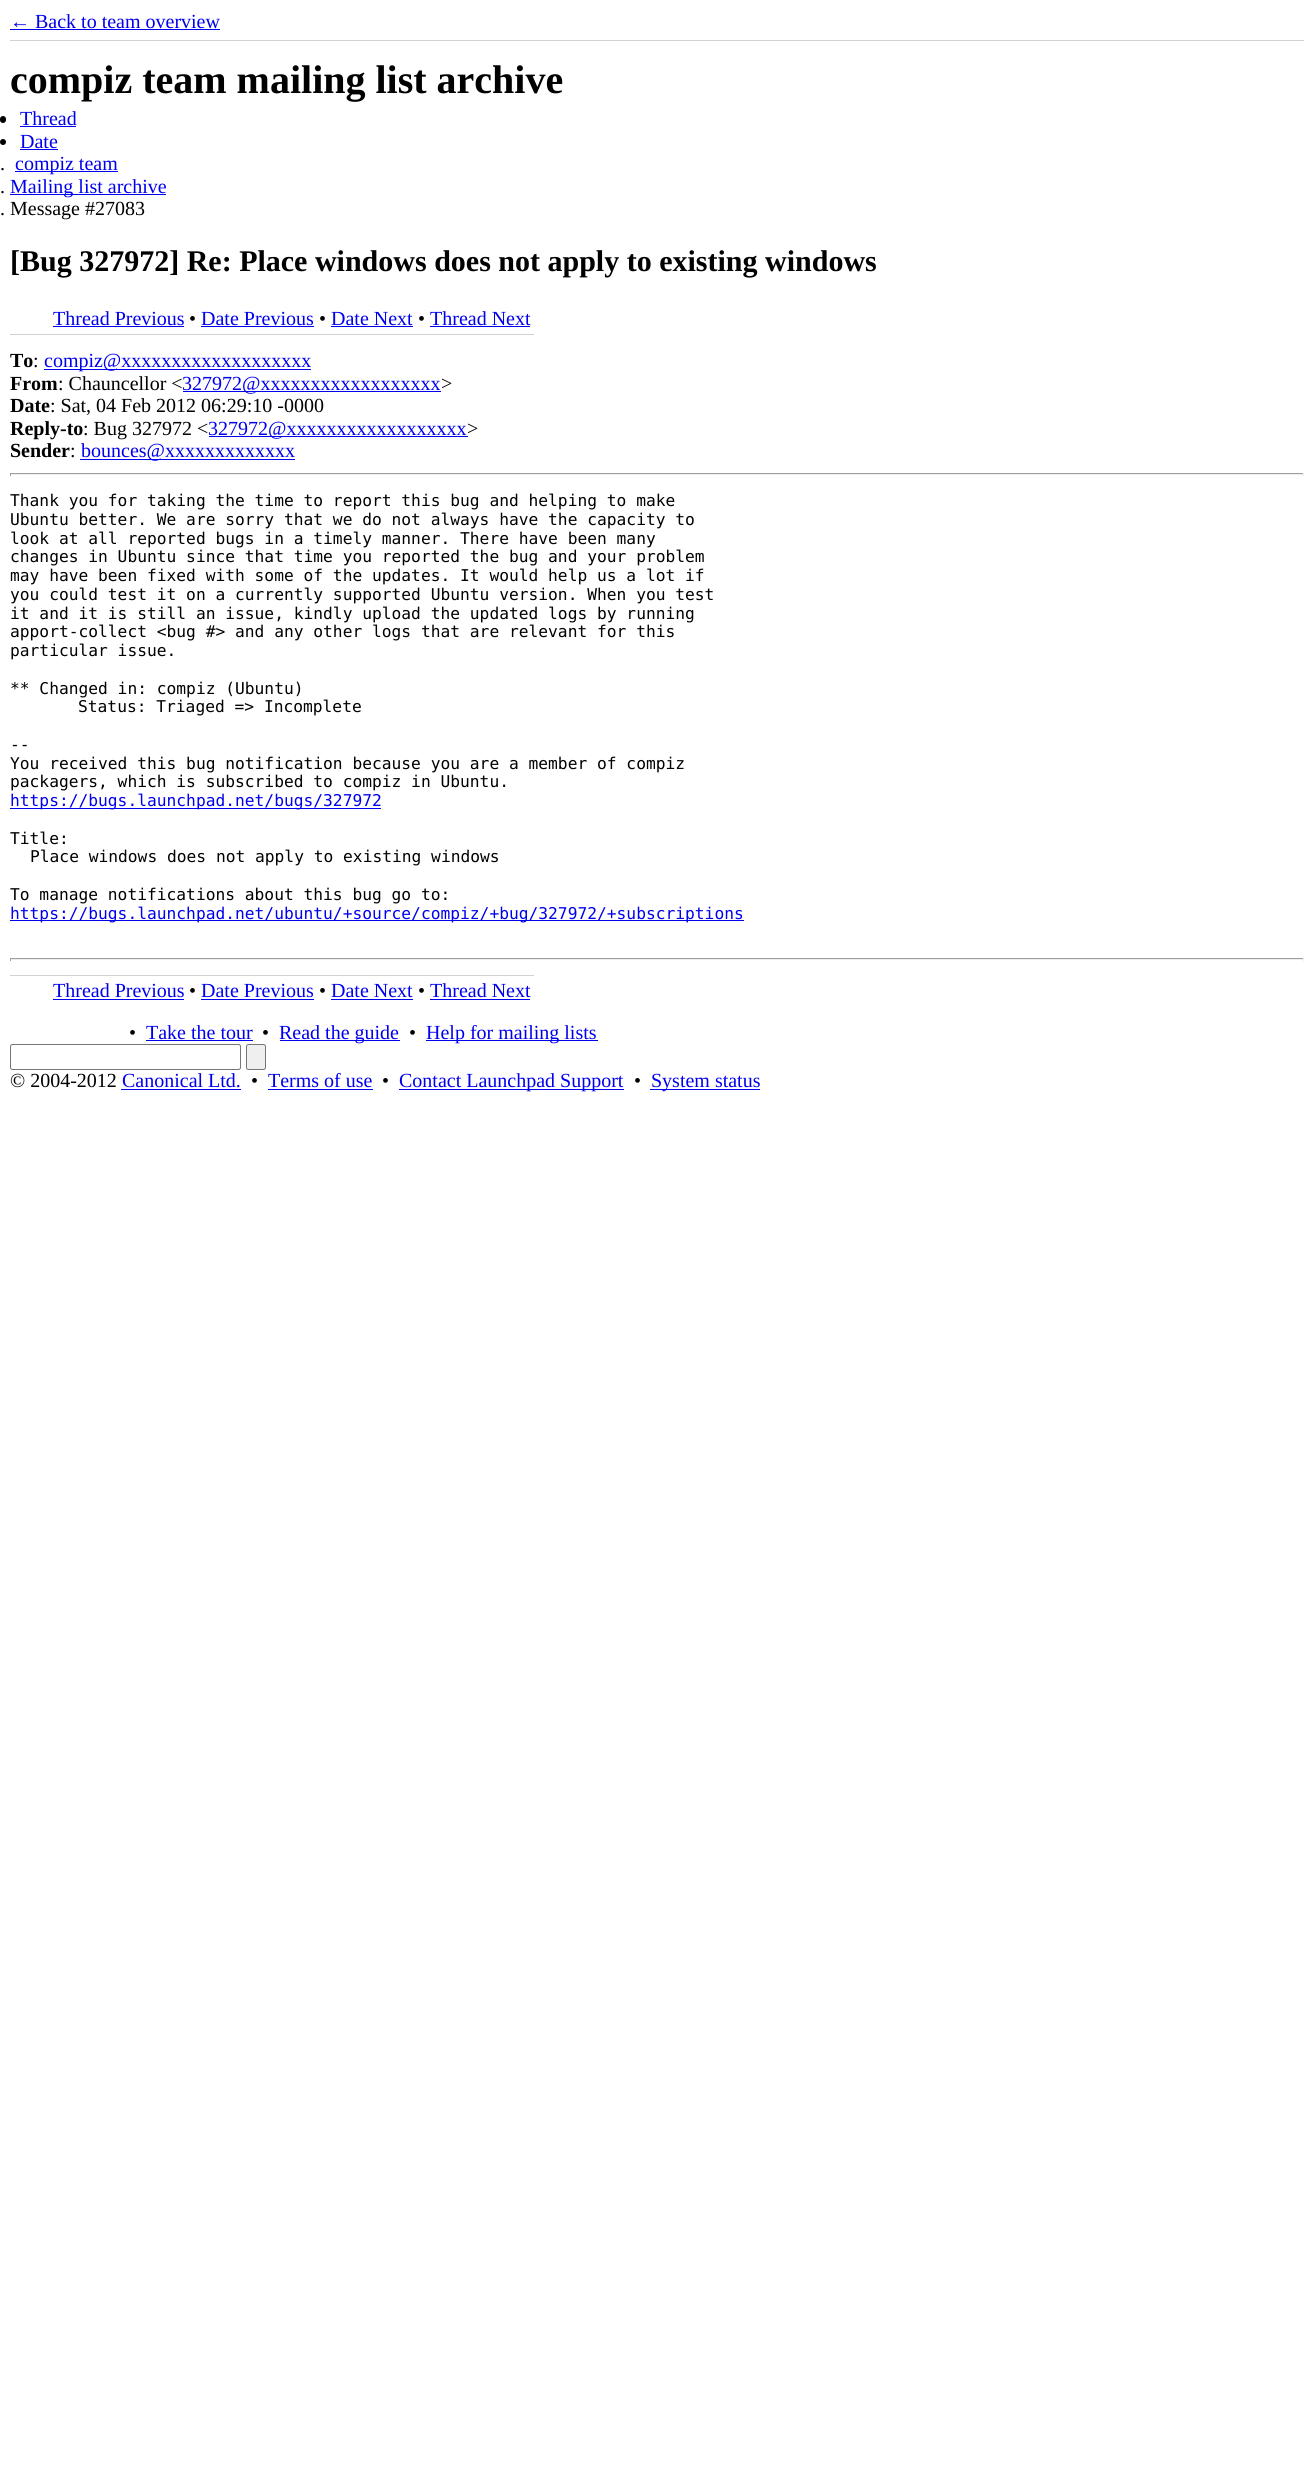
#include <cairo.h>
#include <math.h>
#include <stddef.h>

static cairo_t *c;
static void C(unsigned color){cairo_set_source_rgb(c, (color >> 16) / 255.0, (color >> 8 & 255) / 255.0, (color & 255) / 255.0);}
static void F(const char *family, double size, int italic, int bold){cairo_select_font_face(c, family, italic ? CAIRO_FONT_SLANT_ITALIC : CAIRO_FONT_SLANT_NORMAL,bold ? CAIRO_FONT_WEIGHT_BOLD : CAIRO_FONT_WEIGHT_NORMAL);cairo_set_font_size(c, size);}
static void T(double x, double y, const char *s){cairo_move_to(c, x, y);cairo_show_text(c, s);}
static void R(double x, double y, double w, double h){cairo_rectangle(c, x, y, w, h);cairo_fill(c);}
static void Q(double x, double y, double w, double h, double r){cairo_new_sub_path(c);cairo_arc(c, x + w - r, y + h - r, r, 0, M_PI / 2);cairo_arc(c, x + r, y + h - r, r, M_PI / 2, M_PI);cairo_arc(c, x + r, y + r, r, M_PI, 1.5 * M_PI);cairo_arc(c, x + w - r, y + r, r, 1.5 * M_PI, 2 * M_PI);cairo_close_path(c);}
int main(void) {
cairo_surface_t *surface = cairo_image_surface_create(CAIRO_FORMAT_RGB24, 1313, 2469);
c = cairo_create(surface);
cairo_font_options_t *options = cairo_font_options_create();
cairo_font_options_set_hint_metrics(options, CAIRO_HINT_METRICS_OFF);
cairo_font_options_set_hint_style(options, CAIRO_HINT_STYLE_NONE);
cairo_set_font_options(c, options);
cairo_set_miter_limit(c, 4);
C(0xffffff);
cairo_paint(c);
C(0xd2d2d2);
R(10,40,1294,1);
F("Liberation Serif",20,0,0);
C(0x0000ee);
T(10,28,"← Back to team overview");
R(10,29,210,1);
F("Liberation Serif",40,0,1);
C(0x000000);
T(10,93,"compiz team mailing list archive");
Q(0,116,6,7,3);
cairo_fill(c);
F("Liberation Serif",20,0,0);
C(0x0000ee);
T(20,125,"Thread");
R(20,126,56,1);
C(0x000000);
cairo_new_path(c);
cairo_arc(c,3,142,3,0,2 * M_PI);
cairo_fill(c);
C(0x0000ee);
T(20,148,"Date");
R(20,149,38,1);
C(0x000000);
T(0,170,".");
C(0x0000ee);
R(15,171,103,1);
T(15,170,"compiz team");
C(0x000000);
T(0,193,".");
C(0x0000ee);
R(10,194,156,1);
T(10,193,"Mailing list archive");
C(0x000000);
T(0,215,". Message #27083");
F("Liberation Serif",30,0,1);
T(10,271,"[Bug 327972] Re: Place windows does not apply to existing windows");
C(0xd2d2d2);
R(10,334,524,1);
F("Liberation Serif",20,0,0);
C(0x0000ee);
T(53,325,"Thread Previous");
R(53,326,131,1);
C(0x000000);
T(189,325,"•");
C(0x0000ee);
T(201,325,"Date Previous");
R(201,326,113,1);
C(0x000000);
T(319,325,"•");
C(0x0000ee);
T(331,325,"Date Next");
R(331,326,82,1);
C(0x000000);
T(418,325,"•");
C(0x0000ee);
T(430,325,"Thread Next");
R(430,326,100,1);
F("Liberation Serif",20,0,1);
C(0x000000);
T(10,367,"To");
F("Liberation Serif",20,0,0);
T(33,367,":");
C(0x0000ee);
R(44,369,267,1);
T(44,367,"compiz@xxxxxxxxxxxxxxxxxxx");
F("Liberation Serif",20,0,1);
C(0x000000);
T(10,390,"From");
F("Liberation Serif",20,0,0);
T(58,390,": Chauncellor <");
C(0x0000ee);
R(183,391,258,1);
T(182,390,"327972@xxxxxxxxxxxxxxxxxx");
C(0x000000);
T(441,390,">");
F("Liberation Serif",20,0,1);
T(10,412,"Date");
F("Liberation Serif",20,0,0);
T(50,412,": Sat, 04 Feb 2012 06:29:10 -0000");
F("Liberation Serif",20,0,1);
T(10,435,"Reply-to");
F("Liberation Serif",20,0,0);
T(83,435,": Bug 327972 <");
C(0x0000ee);
R(209,436,259,1);
T(208,435,"327972@xxxxxxxxxxxxxxxxxx");
C(0x000000);
T(467,435,">");
F("Liberation Serif",20,0,1);
T(10,457,"Sender");
F("Liberation Serif",20,0,0);
T(70,457,":");
C(0x0000ee);
R(80,459,215,1);
T(81,457,"bounces@xxxxxxxxxxxxx");
C(0x9f9f9f);
R(10,473,1294,1);
C(0xeeeeee);
R(1303,473,1,3);
R(10,474,1294,1);
C(0x9f9f9f);
R(10,473,1,3);
F("DejaVu Sans Mono",16.25,0,0);
C(0x000000);
T(10,506,"Thank you for taking the time to report this bug and helping to make");
T(10,525,"Ubuntu better. We are sorry that we do not always have the capacity to");
T(10,544,"look at all reported bugs in a timely manner. There have been many");
T(10,562,"changes in Ubuntu since that time you reported the bug and your problem");
T(10,581,"may have been fixed with some of the updates. It would help us a lot if");
T(10,600,"you could test it on a currently supported Ubuntu version. When you test");
T(10,619,"it and it is still an issue, kindly upload the updated logs by running");
T(10,637,"apport-collect <bug #> and any other logs that are relevant for this");
T(10,656,"particular issue.");
T(10,694,"** Changed in: compiz (Ubuntu)");
T(78,712,"Status: Triaged => Incomplete");
T(10,750,"--");
T(10,769,"You received this bug notification because you are a member of compiz");
T(10,787,"packagers, which is subscribed to compiz in Ubuntu.");
C(0x0000ee);
R(10,808,371,1);
T(10,806,"https://bugs.launchpad.net/bugs/327972");
C(0x000000);
T(10,844,"Title:");
T(30,862,"Place windows does not apply to existing windows");
T(10,900,"To manage notifications about this bug go to:");
C(0x0000ee);
R(10,920,734,1);
T(10,919,"https://bugs.launchpad.net/ubuntu/+source/compiz/+bug/327972/+subscriptions");
C(0x9f9f9f);
R(10,958,1294,1);
C(0xeeeeee);
R(1303,958,1,3);
R(10,959,1294,1);
C(0x9f9f9f);
R(10,958,1,3);
C(0xd2d2d2);
R(10,975,524,1);
F("Liberation Serif",20,0,0);
C(0x0000ee);
T(53,997,"Thread Previous");
R(53,999,131,1);
C(0x000000);
T(189,997,"•");
C(0x0000ee);
T(201,997,"Date Previous");
R(201,999,113,1);
C(0x000000);
T(319,997,"•");
C(0x0000ee);
T(331,997,"Date Next");
R(331,999,82,1);
C(0x000000);
T(418,997,"•");
C(0x0000ee);
T(430,997,"Thread Next");
R(430,999,100,1);
C(0x000000);
T(129,1039,"•");
C(0x0000ee);
T(146,1039,"Take the tour");
R(146,1040,107,1);
C(0x000000);
T(262,1039,"•");
C(0x0000ee);
R(280,1040,120,1);
T(279,1039,"Read the guide");
C(0x000000);
T(409,1039,"•");
C(0x0000ee);
R(426,1040,172,1);
T(426,1039,"Help for mailing lists");
Q(10.5,1044.5,230,25,2);
C(0x767676);
cairo_set_line_width(c,1);
cairo_stroke(c);
C(0xefefef);
Q(246.5,1044.5,19,25,2);
cairo_fill_preserve(c);
C(0x767676);
cairo_stroke(c);
C(0x000000);
T(10,1087,"© 2004-2012");
C(0x0000ee);
T(122,1087,"Canonical Ltd.");
R(121,1089,120,1);
C(0x000000);
T(251,1087,"•");
C(0x0000ee);
T(268,1087,"Terms of use");
R(268,1089,105,1);
C(0x000000);
T(382,1087,"•");
C(0x0000ee);
R(399,1089,225,1);
T(399,1087,"Contact Launchpad Support");
C(0x000000);
T(634,1087,"•");
C(0x0000ee);
R(650,1089,110,1);
T(651,1087,"System status");
cairo_surface_write_to_png(surface, "o.png");
cairo_font_options_destroy(options);
cairo_destroy(c);
cairo_surface_destroy(surface);
return 0;
}
